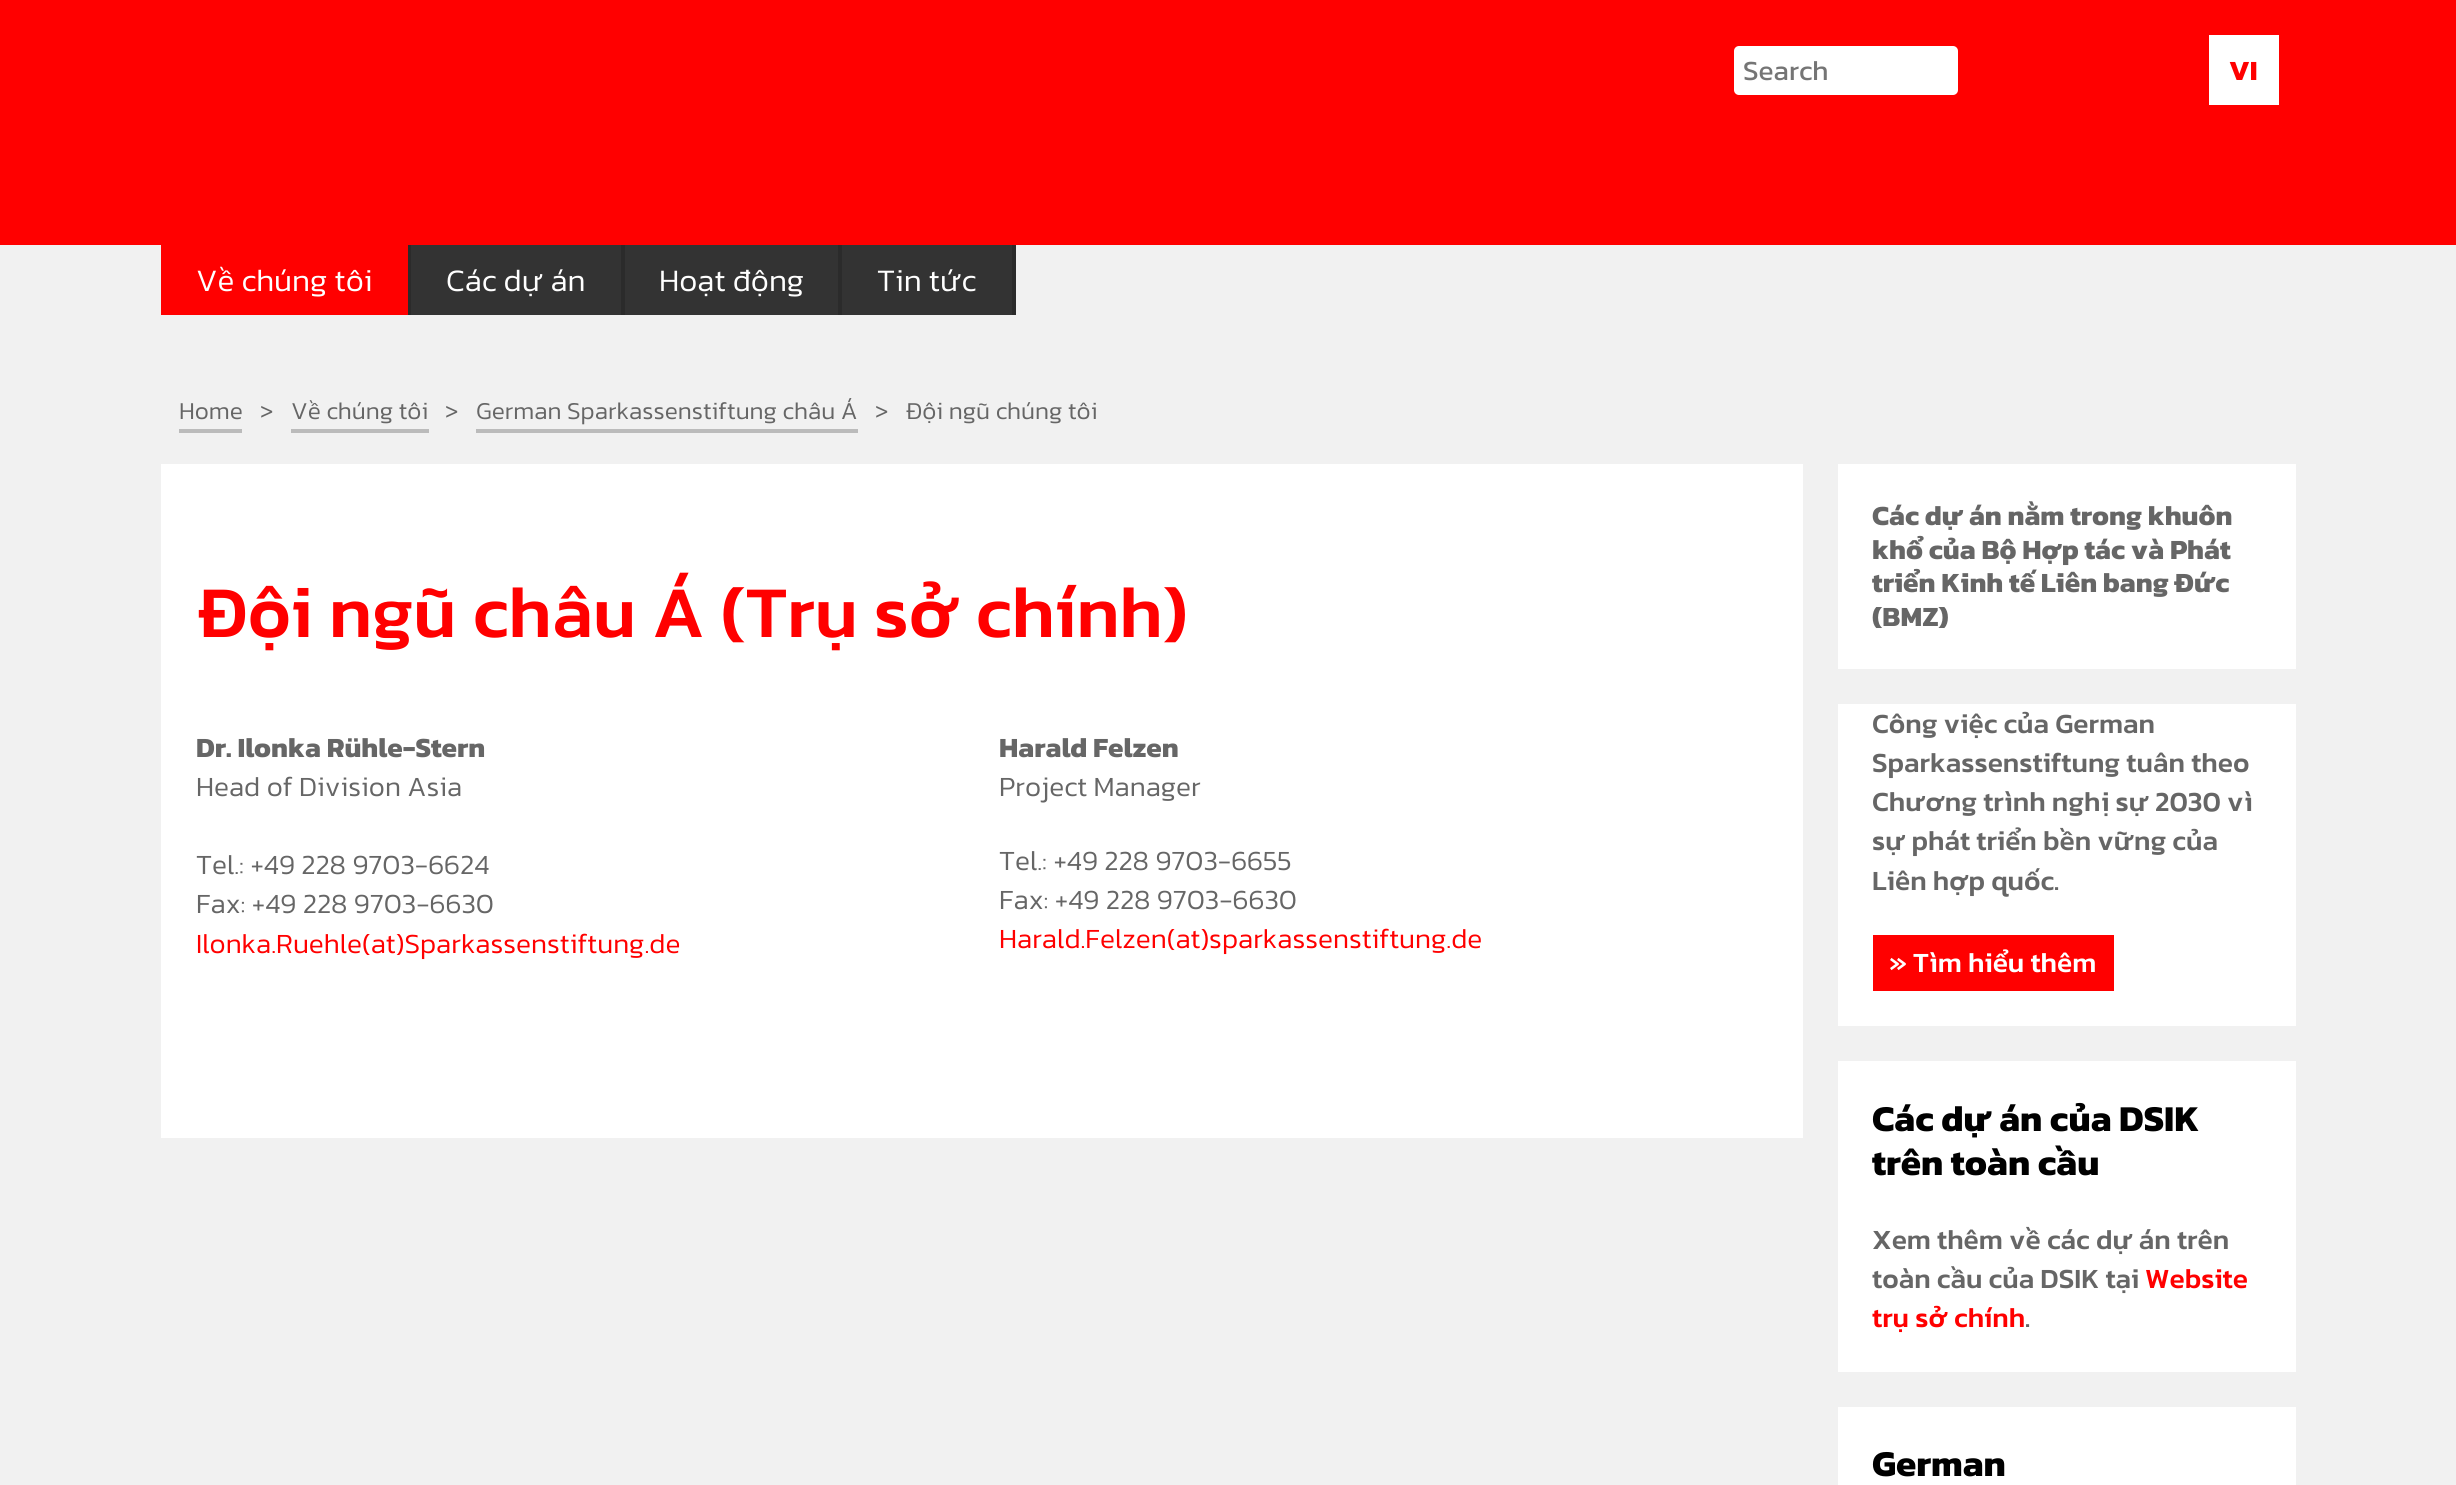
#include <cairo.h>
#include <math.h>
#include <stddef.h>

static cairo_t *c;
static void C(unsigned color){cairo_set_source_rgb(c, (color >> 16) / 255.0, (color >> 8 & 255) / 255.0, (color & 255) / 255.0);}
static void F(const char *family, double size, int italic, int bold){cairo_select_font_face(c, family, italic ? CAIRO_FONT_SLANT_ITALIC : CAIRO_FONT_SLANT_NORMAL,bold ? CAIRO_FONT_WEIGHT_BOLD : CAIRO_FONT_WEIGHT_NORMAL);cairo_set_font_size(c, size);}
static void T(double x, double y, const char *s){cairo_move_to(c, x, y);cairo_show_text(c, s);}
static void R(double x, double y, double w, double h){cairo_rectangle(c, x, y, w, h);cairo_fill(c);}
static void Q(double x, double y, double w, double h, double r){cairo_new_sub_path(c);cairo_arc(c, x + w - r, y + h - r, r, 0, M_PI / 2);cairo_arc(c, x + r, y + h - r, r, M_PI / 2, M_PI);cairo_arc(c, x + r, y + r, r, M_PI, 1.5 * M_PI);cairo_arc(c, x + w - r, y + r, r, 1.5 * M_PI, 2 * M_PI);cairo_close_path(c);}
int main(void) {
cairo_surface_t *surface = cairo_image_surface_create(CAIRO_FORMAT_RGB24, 2456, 1485);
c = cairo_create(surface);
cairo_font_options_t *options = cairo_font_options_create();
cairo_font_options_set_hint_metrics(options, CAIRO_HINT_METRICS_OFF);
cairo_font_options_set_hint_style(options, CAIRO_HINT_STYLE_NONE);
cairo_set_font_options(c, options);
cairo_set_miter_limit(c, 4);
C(0xf1f1f1);
cairo_paint(c);
C(0xff0000);
R(0,0,2456,245);
C(0xffffff);
Q(1734,46,224,49,5);
cairo_fill(c);
F("Kanit",28,0,0);
C(0x757575);
T(1743,80,"Search");
C(0xffffff);
R(2209,35,70,70);
F("Kanit",28,0,1);
C(0xff0000);
T(2229,80,"VI");
C(0x2b2b2b);
R(408,245,3,70);
C(0xff0000);
R(161,245,247,70);
F("Kanit Light",31.5,0,0);
C(0xffffff);
T(196,291,"Về chúng tôi");
C(0x333333);
R(411,245,210,70);
C(0x2b2b2b);
R(621,245,4,70);
C(0xffffff);
T(446,291,"Các dự án");
C(0x333333);
R(625,245,213,70);
C(0x2b2b2b);
R(838,245,4,70);
C(0xffffff);
T(659,291,"Hoạt động");
C(0x333333);
R(842,245,170,70);
C(0x2b2b2b);
R(1012,245,4,70);
C(0xffffff);
T(877,291,"Tin tức");
F("Kanit Light",24.5,0,0);
C(0x666666);
T(179,419,"Home");
C(0xbbbbbb);
R(179,429,63,4);
C(0x666666);
T(260,419,">");
T(291,419,"Về chúng tôi");
C(0xbbbbbb);
R(291,429,138,4);
C(0x666666);
T(445,419,">");
T(476,419,"German Sparkassenstiftung châu Á");
C(0xbbbbbb);
R(476,429,382,4);
C(0x666666);
T(875,419,">");
T(906,419,"Đội ngũ chúng tôi");
C(0xffffff);
R(161,464,1642,674);
F("Kanit Medium",73.5,0,0);
C(0xff0000);
T(196,637,"Đội ngũ châu Á (Trụ sở chính)");
F("Kanit",28,0,1);
C(0x666666);
T(196,757,"Dr. Ilonka Rühle-Stern");
F("Kanit Light",28,0,0);
T(196,796,"Head of Division Asia");
T(196,874,"Tel.: +49 228 9703-6624");
T(196,913,"Fax: +49 228 9703-6630");
C(0xff0000);
T(196,953,"Ilonka.Ruehle(at)Sparkassenstiftung.de");
F("Kanit",28,0,1);
C(0x666666);
T(999,757,"Harald Felzen");
F("Kanit Light",28,0,0);
T(999,796,"Project Manager");
T(999,870,"Tel.: +49 228 9703-6655");
T(999,909,"Fax: +49 228 9703-6630");
C(0xff0000);
T(999,948,"Harald.Felzen(at)sparkassenstiftung.de");
C(0xffffff);
R(1838,464,458,205);
F("Kanit",28,0,1);
C(0x666666);
T(1872,525,"Các dự án nằm trong khuôn");
T(1872,559,"khổ của Bộ Hợp tác và Phát");
T(1872,592,"triển Kinh tế Liên bang Đức");
T(1872,626,"(BMZ)");
C(0xffffff);
R(1838,704,458,322);
F("Kanit Medium",28,0,0);
C(0x666666);
T(1872,733,"Công việc của German");
T(1872,772,"Sparkassenstiftung tuân theo");
T(1872,811,"Chương trình nghị sự 2030 vì");
T(1872,850,"sự phát triển bền vững của");
T(1872,890,"Liên hợp quốc.");
C(0xff0000);
R(1873,935,241,56);
C(0xffffff);
T(1889,972,"» Tìm hiểu thêm");
R(1838,1061,458,311);
F("Kanit",36.75,0,1);
C(0x000000);
T(1872,1131,"Các dự án của DSIK");
T(1872,1175,"trên toàn cầu");
F("Kanit Medium",28,0,0);
C(0x666666);
T(1872,1249,"Xem thêm về các dự án trên");
T(1872,1288,"toàn cầu của DSIK tại");
C(0xff0000);
T(2145,1288,"Website");
T(1872,1327,"trụ sở chính");
C(0x666666);
T(2025,1327,".");
C(0xffffff);
R(1838,1407,458,78);
F("Kanit",36.75,0,1);
C(0x000000);
T(1872,1476,"German");
cairo_surface_write_to_png(surface, "o.png");
cairo_font_options_destroy(options);
cairo_destroy(c);
cairo_surface_destroy(surface);
return 0;
}
